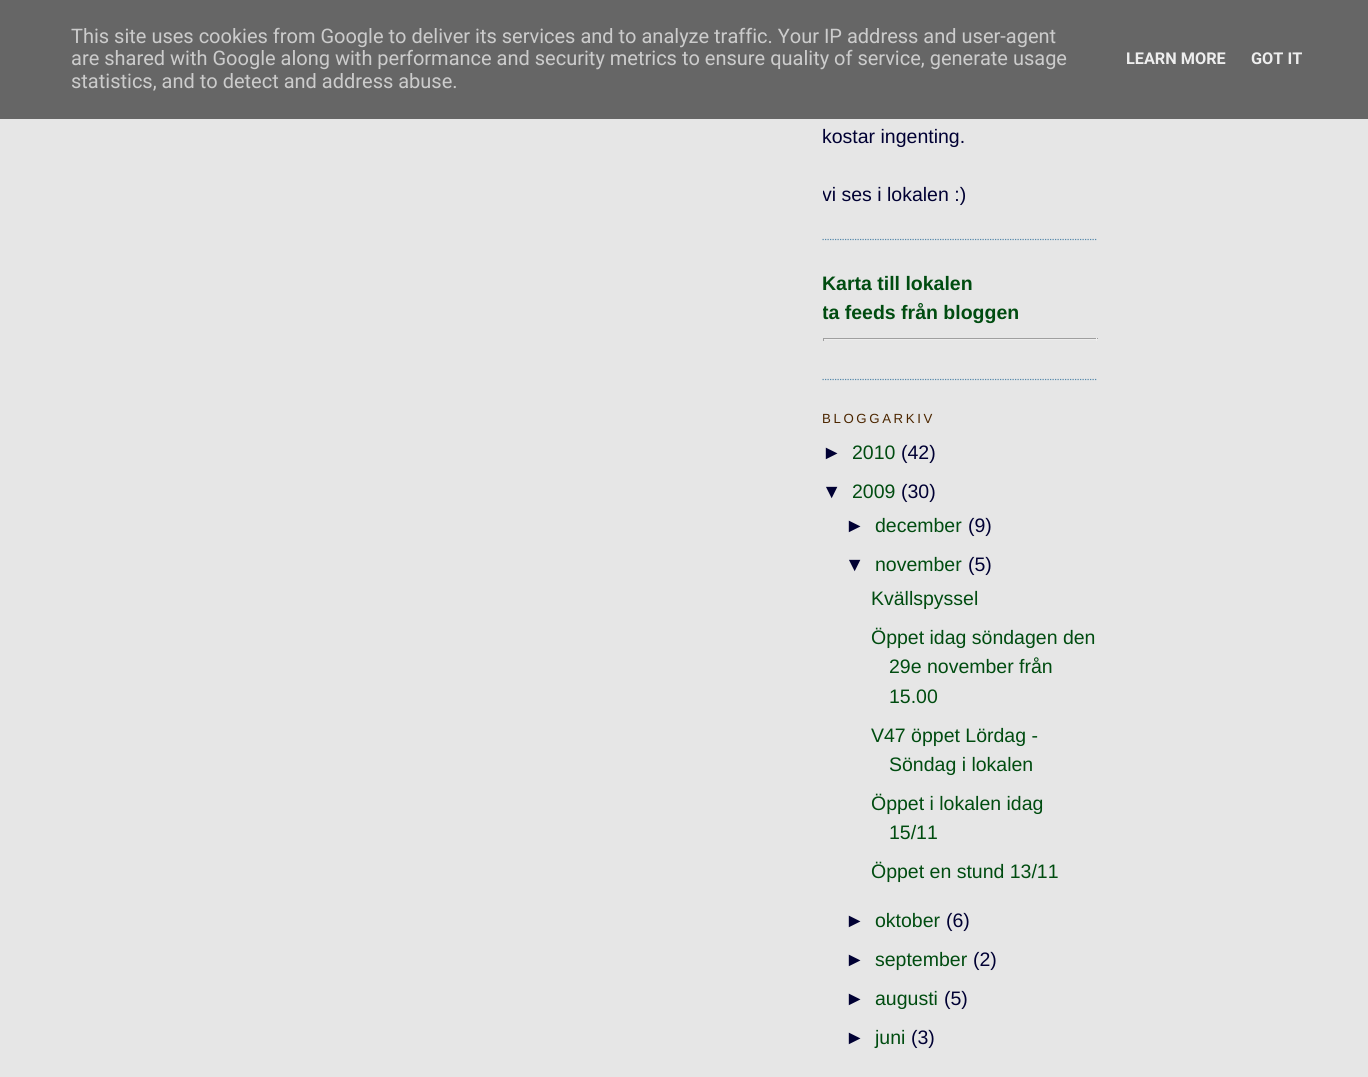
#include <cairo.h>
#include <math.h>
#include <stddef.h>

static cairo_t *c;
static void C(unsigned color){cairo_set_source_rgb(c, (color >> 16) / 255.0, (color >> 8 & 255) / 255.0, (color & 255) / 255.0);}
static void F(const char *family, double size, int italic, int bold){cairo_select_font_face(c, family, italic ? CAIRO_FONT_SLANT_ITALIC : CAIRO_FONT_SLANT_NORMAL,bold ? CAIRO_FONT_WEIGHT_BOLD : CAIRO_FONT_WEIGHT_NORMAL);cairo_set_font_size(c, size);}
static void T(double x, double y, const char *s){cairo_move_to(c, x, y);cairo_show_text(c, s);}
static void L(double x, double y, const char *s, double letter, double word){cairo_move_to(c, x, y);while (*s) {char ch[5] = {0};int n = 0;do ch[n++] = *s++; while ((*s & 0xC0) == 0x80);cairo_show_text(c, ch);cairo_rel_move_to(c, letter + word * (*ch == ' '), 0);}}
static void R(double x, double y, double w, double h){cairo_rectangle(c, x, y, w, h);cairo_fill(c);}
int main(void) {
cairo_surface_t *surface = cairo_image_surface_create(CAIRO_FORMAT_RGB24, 1368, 1077);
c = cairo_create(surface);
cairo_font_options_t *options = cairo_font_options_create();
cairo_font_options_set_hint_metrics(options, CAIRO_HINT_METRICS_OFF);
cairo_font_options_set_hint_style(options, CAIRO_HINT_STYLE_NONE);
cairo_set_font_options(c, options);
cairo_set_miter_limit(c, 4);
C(0xe6e6e6);
cairo_paint(c);
C(0x666666);
R(0,0,1368,119);
F("Roboto",20,0,0);
C(0xcccccc);
T(71,43,"This site uses cookies from Google to deliver its services and to analyze traffic. Your IP address and user-agent");
T(71,65,"are shared with Google along with performance and security metrics to ensure quality of service, generate usage");
T(71,88,"statistics, and to detect and address abuse.");
F("Roboto",16.25,0,1);
C(0xeeeeee);
T(1126,64,"LEARN MORE");
T(1251,64,"GOT IT");
cairo_new_path(c);
cairo_move_to(c,822.5,239.5);
cairo_line_to(c,1097.5,239.5);
C(0x5588aa);
cairo_set_line_width(c,1.2);
cairo_set_dash(c,(double[]){1.25,1.25},2,0);
cairo_stroke(c);
F("Liberation Sans",19.5,0,0);
C(0x000033);
T(822,143,"kostar ingenting.");
cairo_save(c);
cairo_rectangle(c,823,0,275,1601);
cairo_clip(c);
T(822,201,"vi ses i lokalen :)");
cairo_restore(c);
cairo_new_path(c);
cairo_move_to(c,822.5,379.5);
cairo_line_to(c,1097.5,379.5);
C(0x5588aa);
cairo_stroke(c);
F("Liberation Sans",19.5,0,1);
C(0x004c10);
T(822,290,"Karta till lokalen");
cairo_save(c);
cairo_rectangle(c,823,0,275,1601);
cairo_clip(c);
T(822,319,"ta feeds från bloggen");
cairo_restore(c);
C(0x9f9f9f);
R(823,338,275,1);
C(0xeeeeee);
R(1096,338,1,3);
R(823,339,275,1);
C(0x9f9f9f);
R(823,338,1,3);
F("Liberation Sans",13.25,0,0);
C(0x4c2600);
L(822,423,"BLOGGARKIV",2.6,0);
F("Liberation Sans",19.5,0,0);
C(0x000033);
T(822,459,"►");
C(0x004c10);
T(852,459,"2010");
C(0x000033);
T(901,459,"(42)");
T(822,498,"▼");
C(0x004c10);
T(852,498,"2009");
C(0x000033);
T(901,498,"(30)");
T(845,532,"►");
C(0x004c10);
T(875,532,"december");
C(0x000033);
T(968,532,"(9)");
T(845,571,"▼");
C(0x004c10);
T(875,571,"november");
C(0x000033);
T(968,571,"(5)");
C(0x004c10);
T(871,605,"Kvällspyssel");
T(871,644,"Öppet idag söndagen den");
T(889,673,"29e november från");
T(889,703,"15.00");
T(871,742,"V47 öppet Lördag -");
T(889,771,"Söndag i lokalen");
T(871,810,"Öppet i lokalen idag");
T(889,839,"15/11");
T(871,878,"Öppet en stund 13/11");
C(0x000033);
T(845,927,"►");
C(0x004c10);
T(875,927,"oktober");
C(0x000033);
T(946,927,"(6)");
T(845,966,"►");
C(0x004c10);
T(875,966,"september");
C(0x000033);
T(973,966,"(2)");
T(845,1005,"►");
C(0x004c10);
T(875,1005,"augusti");
C(0x000033);
T(944,1005,"(5)");
T(845,1044,"►");
C(0x004c10);
T(875,1044,"juni");
C(0x000033);
T(911,1044,"(3)");
cairo_surface_write_to_png(surface, "o.png");
cairo_font_options_destroy(options);
cairo_destroy(c);
cairo_surface_destroy(surface);
return 0;
}
